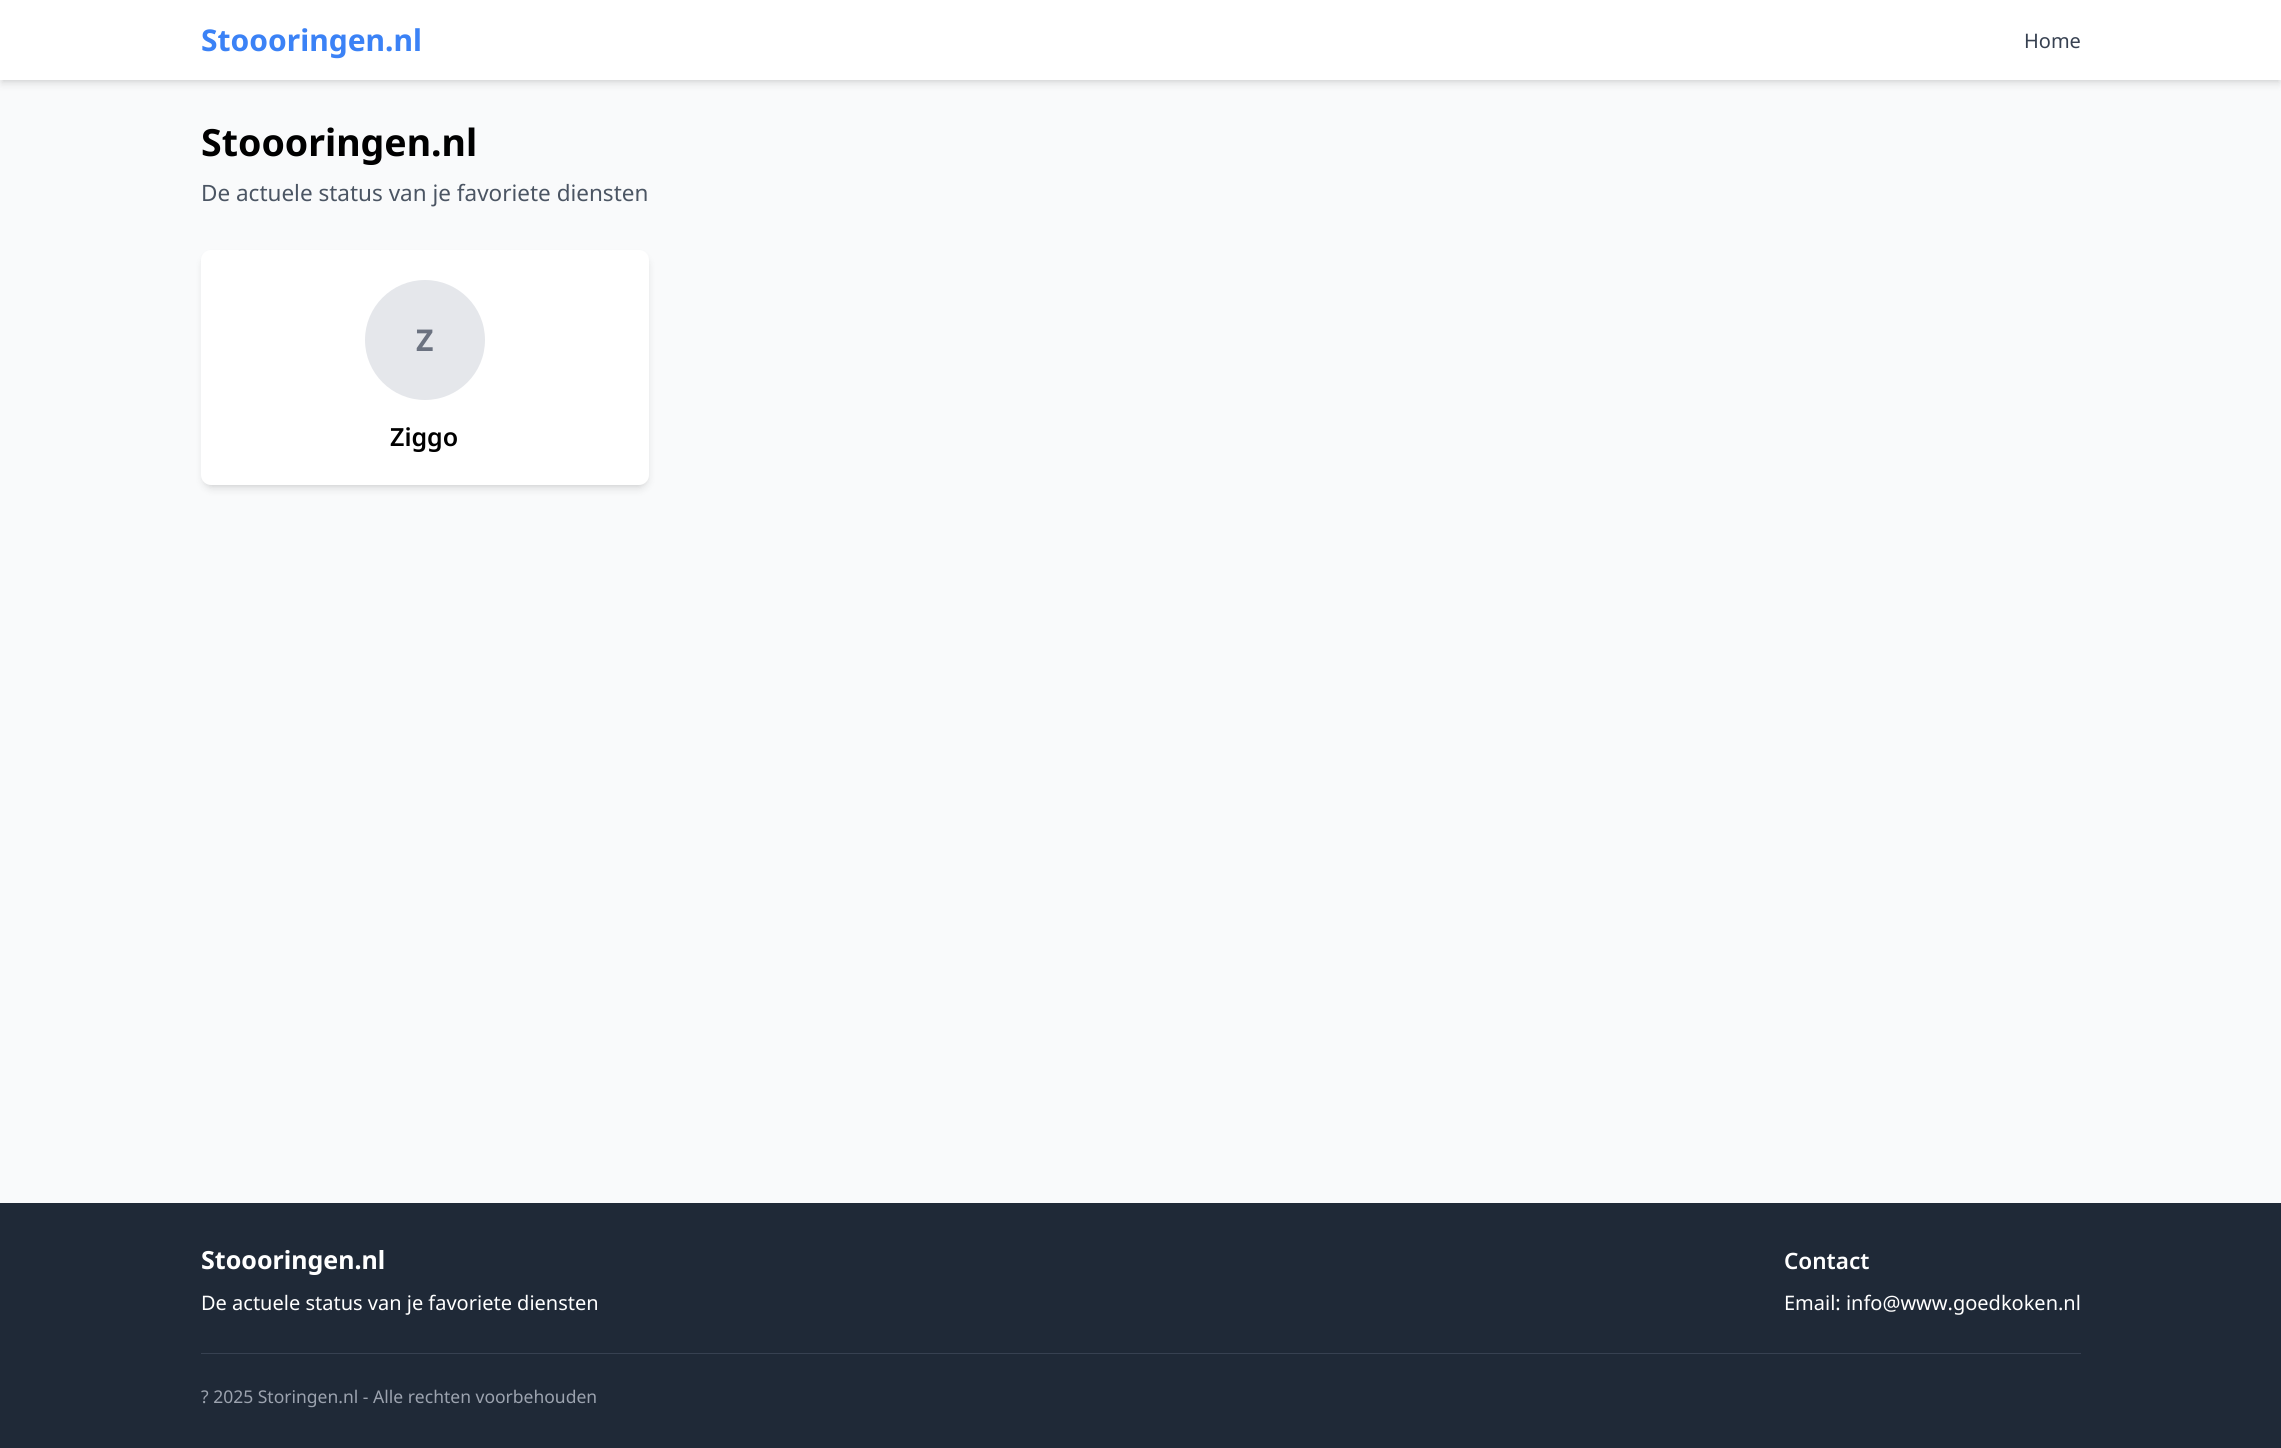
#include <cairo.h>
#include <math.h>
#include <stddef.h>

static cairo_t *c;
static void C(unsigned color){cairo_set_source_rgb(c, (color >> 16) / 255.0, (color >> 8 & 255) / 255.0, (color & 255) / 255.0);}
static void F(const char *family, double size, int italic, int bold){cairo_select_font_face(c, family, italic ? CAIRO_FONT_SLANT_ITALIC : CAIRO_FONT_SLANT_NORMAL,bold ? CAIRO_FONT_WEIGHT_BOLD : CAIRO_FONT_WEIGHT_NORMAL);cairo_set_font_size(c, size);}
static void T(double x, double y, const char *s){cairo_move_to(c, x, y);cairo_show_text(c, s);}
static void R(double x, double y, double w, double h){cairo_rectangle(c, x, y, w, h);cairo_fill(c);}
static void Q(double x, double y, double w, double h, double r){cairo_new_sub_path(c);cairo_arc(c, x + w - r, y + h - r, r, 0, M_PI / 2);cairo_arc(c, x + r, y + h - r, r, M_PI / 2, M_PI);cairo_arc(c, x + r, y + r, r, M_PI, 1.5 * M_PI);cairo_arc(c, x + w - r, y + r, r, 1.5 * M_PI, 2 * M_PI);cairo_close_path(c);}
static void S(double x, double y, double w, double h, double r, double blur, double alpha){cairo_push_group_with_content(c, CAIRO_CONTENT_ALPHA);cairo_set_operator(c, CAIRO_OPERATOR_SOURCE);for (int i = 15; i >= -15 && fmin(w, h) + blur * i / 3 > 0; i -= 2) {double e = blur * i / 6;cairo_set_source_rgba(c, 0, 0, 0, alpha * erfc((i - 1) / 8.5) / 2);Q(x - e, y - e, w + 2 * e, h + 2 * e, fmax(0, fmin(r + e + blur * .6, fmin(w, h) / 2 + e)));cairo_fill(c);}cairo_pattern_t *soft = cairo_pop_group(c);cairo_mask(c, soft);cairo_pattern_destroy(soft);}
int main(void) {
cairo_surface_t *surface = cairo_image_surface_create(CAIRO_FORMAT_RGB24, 2281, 1448);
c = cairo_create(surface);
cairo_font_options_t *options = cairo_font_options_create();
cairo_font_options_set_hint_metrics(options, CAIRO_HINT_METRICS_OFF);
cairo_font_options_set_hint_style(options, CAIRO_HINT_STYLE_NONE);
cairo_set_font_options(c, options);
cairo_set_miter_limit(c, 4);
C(0xf9fafb);
cairo_paint(c);
C(0x000000);
S(3,5,2276,75,0,2.5,.1);
S(1,6,2279,78,0,4,.1);
C(0xffffff);
R(0,0,2281,80);
F("Noto Sans",30,0,1);
C(0x3b82f6);
T(201,51,"Stoooringen.nl");
F("Noto Sans",20,0,0);
C(0x374151);
T(2024,48,"Home");
F("Noto Sans",37.5,0,1);
C(0x000000);
T(201,156,"Stoooringen.nl");
F("Noto Sans",22.5,0,0);
C(0x4b5563);
T(201,201,"De actuele status van je favoriete diensten");
C(0x000000);
S(204,255,442,230,8,2.5,.1);
S(203,256,445,233,9,4,.1);
C(0xffffff);
Q(201,250,448,235,10);
cairo_fill(c);
C(0xe5e7eb);
cairo_arc(c,425,340,60,0,2 * M_PI);
cairo_fill(c);
F("Noto Sans",30,0,1);
C(0x6b7280);
T(416,351,"Z");
F("Noto Sans SemiBold",25,0,0);
C(0x000000);
T(390,446,"Ziggo");
C(0x1f2937);
R(0,1203,2281,245);
F("Noto Sans",25,0,1);
C(0xffffff);
T(201,1269,"Stoooringen.nl");
F("Noto Sans",20,0,0);
T(201,1310,"De actuele status van je favoriete diensten");
F("Noto Sans SemiBold",22.5,0,0);
T(1784,1269,"Contact");
F("Noto Sans",20,0,0);
T(1784,1310,"Email: info@www.goedkoken.nl");
C(0x374151);
R(201,1353,1880,1);
F("Noto Sans",17.5,0,0);
C(0x9ca3af);
T(201,1403,"? 2025 Storingen.nl - Alle rechten voorbehouden");
cairo_surface_write_to_png(surface, "o.png");
cairo_font_options_destroy(options);
cairo_destroy(c);
cairo_surface_destroy(surface);
return 0;
}
